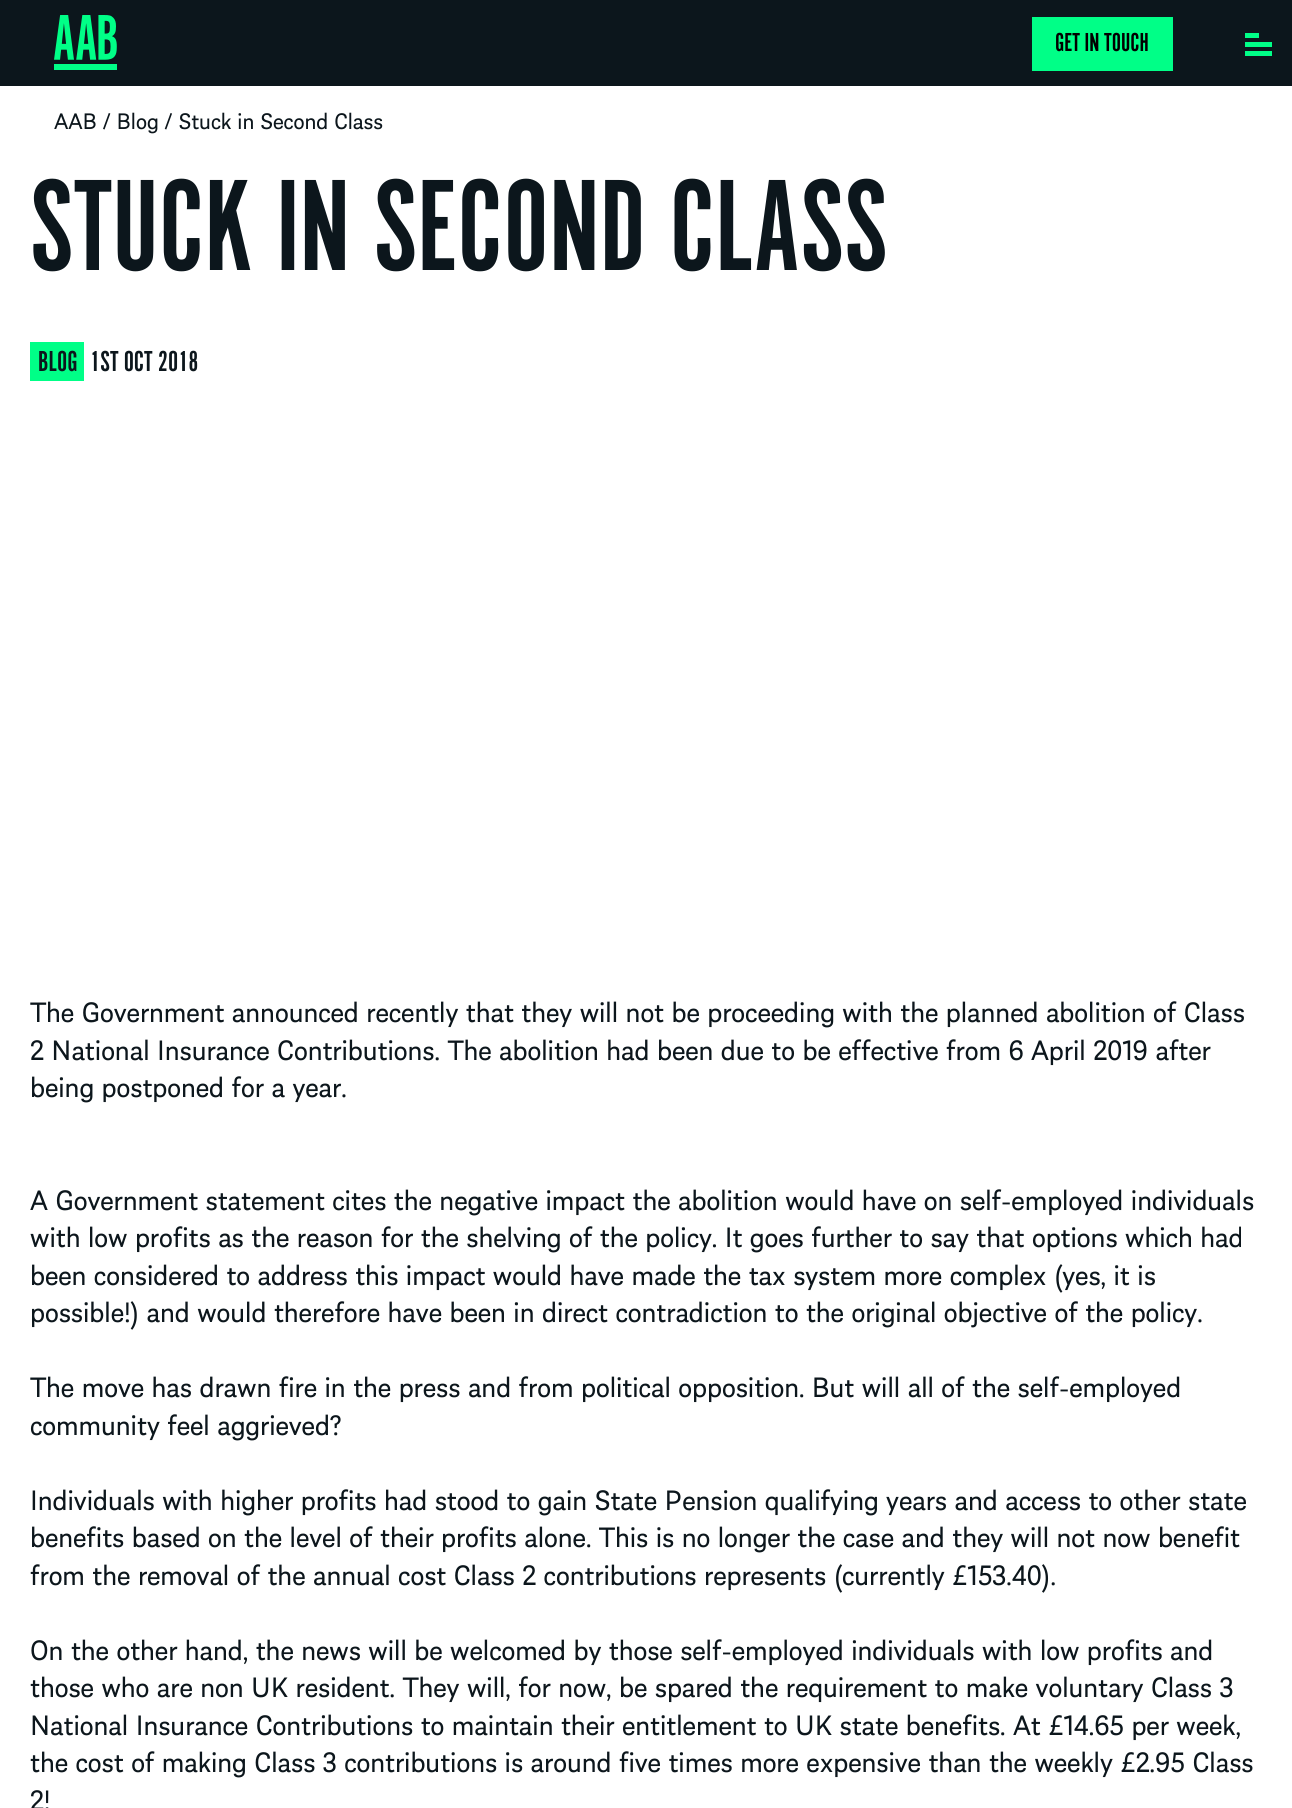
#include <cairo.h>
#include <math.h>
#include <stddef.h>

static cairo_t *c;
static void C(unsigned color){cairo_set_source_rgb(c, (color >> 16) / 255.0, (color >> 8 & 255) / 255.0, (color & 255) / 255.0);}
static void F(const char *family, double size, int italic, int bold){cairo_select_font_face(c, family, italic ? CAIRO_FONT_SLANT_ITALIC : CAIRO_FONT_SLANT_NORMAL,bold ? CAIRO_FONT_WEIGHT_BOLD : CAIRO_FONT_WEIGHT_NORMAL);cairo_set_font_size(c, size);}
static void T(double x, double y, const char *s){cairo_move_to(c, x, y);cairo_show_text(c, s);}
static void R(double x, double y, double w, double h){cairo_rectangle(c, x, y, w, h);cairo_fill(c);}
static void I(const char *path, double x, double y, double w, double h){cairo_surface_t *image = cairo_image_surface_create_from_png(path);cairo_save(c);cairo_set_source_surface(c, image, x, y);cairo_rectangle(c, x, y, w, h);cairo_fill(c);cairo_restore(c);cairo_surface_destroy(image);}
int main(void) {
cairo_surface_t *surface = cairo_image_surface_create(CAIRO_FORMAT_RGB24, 1292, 1808);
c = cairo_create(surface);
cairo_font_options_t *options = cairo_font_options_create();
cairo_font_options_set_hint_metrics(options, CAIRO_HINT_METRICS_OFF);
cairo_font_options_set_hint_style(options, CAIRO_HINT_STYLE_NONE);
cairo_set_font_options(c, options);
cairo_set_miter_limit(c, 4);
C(0xffffff);
cairo_paint(c);
C(0x0c161c);
R(0,0,1292,86);
I("1.png",54,15,63,55);
C(0x00ff87);
R(1032,17,141,54);
F("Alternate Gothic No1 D",27,0,0);
C(0x000000);
T(1055,51,"GET IN TOUCH");
C(0x00ff87);
R(1245,42,27,5);
R(1245,33,14,5);
R(1245,51,27,5);
F("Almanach",24,0,0);
C(0x0c161c);
T(54,129,"AAB / Blog / Stuck in Second Class");
F("Alternate Gothic No1 D",135,0,0);
T(30,270,"STUCK IN SECOND CLASS");
C(0x00ff87);
R(30,342,54,39);
F("Alternate Gothic No1 D",30,0,0);
C(0x0c161c);
T(38,371,"BLOG");
T(90,371,"1ST OCT 2018");
F("Almanach",30,0,0);
T(30,1022,"The Government announced recently that they will not be proceeding with the planned abolition of Class");
T(30,1060,"2 National Insurance Contributions. The abolition had been due to be effective from 6 April 2019 after");
T(30,1097,"being postponed for a year.");
T(30,1210,"A Government statement cites the negative impact the abolition would have on self-employed individuals");
T(30,1247,"with low profits as the reason for the shelving of the policy. It goes further to say that options which had");
T(30,1285,"been considered to address this impact would have made the tax system more complex (yes, it is");
T(30,1322,"possible!) and would therefore have been in direct contradiction to the original objective of the policy.");
T(30,1397,"The move has drawn fire in the press and from political opposition. But will all of the self-employed");
T(30,1435,"community feel aggrieved?");
T(30,1510,"Individuals with higher profits had stood to gain State Pension qualifying years and access to other state");
T(30,1547,"benefits based on the level of their profits alone. This is no longer the case and they will not now benefit");
T(30,1585,"from the removal of the annual cost Class 2 contributions represents (currently £153.40).");
T(30,1660,"On the other hand, the news will be welcomed by those self-employed individuals with low profits and");
T(30,1697,"those who are non UK resident. They will, for now, be spared the requirement to make voluntary Class 3");
T(30,1735,"National Insurance Contributions to maintain their entitlement to UK state benefits. At £14.65 per week,");
T(30,1772,"the cost of making Class 3 contributions is around five times more expensive than the weekly £2.95 Class");
T(30,1810,"2!");
cairo_surface_write_to_png(surface, "o.png");
cairo_font_options_destroy(options);
cairo_destroy(c);
cairo_surface_destroy(surface);
return 0;
}
